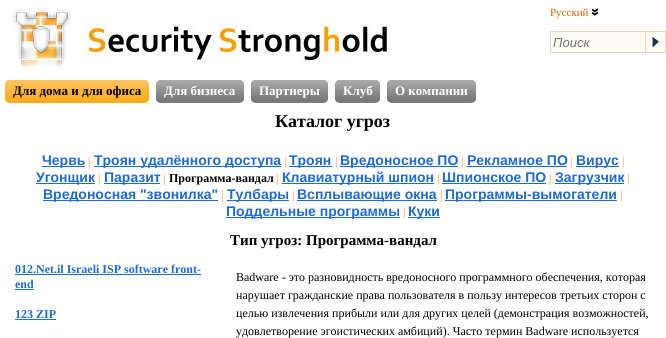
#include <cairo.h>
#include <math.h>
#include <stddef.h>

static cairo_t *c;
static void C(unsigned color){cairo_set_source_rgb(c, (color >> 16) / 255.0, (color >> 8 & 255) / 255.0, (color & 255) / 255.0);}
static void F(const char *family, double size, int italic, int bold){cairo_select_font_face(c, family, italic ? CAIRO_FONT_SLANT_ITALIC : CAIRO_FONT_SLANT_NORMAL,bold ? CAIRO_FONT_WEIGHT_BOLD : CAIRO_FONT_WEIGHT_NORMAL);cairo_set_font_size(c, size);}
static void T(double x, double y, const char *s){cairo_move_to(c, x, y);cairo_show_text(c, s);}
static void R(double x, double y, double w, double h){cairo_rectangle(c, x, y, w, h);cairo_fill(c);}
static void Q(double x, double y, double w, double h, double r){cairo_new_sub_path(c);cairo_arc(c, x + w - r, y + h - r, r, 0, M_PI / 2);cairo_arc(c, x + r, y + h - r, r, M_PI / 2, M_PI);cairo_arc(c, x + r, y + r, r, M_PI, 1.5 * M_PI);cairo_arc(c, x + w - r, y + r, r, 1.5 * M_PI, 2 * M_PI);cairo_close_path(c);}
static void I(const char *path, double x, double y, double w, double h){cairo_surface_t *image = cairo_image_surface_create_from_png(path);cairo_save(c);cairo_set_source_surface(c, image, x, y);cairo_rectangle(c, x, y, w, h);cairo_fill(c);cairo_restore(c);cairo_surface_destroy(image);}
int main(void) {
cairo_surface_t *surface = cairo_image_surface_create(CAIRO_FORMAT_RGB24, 666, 338);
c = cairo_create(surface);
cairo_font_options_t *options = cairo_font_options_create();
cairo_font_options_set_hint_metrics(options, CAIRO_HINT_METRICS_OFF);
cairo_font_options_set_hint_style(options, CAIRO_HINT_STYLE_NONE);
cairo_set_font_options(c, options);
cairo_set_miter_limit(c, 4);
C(0xffffff);
cairo_paint(c);
I("1.png",12,8,60,62);
I("2.png",83,24,304,40);
F("Liberation Serif",11,0,0);
C(0xcc6600);
T(550,16,"Русский");
I("3.png",592,8,6,8);
C(0xfefcf4);
cairo_rectangle(c,550.5,31.5,95,21);
cairo_fill_preserve(c);
C(0xe4d6c5);
cairo_set_line_width(c,1);
cairo_stroke(c);
F("Liberation Sans",13,1,0);
C(0x757575);
T(553,47,"Поиск");
C(0xfefcf4);
R(646,32,19,20);
I("4.png",652,37,7,10);
C(0xe4d6c5);
R(646,31,20,1);
R(665,31,1,22);
R(646,52,20,1);
C(0xffac1f);
Q(5,80,144,23,5);
cairo_fill(c);
I("5.png",5,80,144,22);
F("Liberation Serif",13,0,1);
C(0x000000);
T(13,95,"Для дома и для офиса");
C(0x808080);
Q(156,80,88,23,5);
cairo_fill(c);
I("6.png",156,80,88,22);
C(0xffffff);
T(164,95,"Для бизнеса");
C(0x808080);
Q(251,80,77,23,5);
cairo_fill(c);
I("7.png",251,80,77,22);
C(0xffffff);
T(259,95,"Партнеры");
C(0x808080);
Q(335,80,45,23,5);
cairo_fill(c);
I("8.png",335,80,45,22);
C(0xffffff);
T(343,95,"Клуб");
C(0x808080);
Q(387,80,89,23,5);
cairo_fill(c);
I("9.png",387,80,89,22);
C(0xffffff);
T(395,95,"О компании");
F("Liberation Serif",18,0,1);
C(0x000000);
T(275,127,"Каталог угроз");
C(0x206ad2);
R(42,166,43,1);
F("Liberation Sans",14,0,1);
T(42,165,"Червь");
F("Liberation Serif",12,0,0);
C(0xff9933);
T(88,165,"|");
C(0x206ad2);
R(94,166,187,1);
F("Liberation Sans",14,0,1);
T(94,165,"Троян удалённого доступа");
F("Liberation Serif",12,0,0);
C(0xff9933);
T(284,165,"|");
C(0x206ad2);
R(289,166,43,1);
F("Liberation Sans",14,0,1);
T(289,165,"Троян");
F("Liberation Serif",12,0,0);
C(0xff9933);
T(335,165,"|");
C(0x206ad2);
R(340,166,118,1);
F("Liberation Sans",14,0,1);
T(340,165,"Вредоносное ПО");
F("Liberation Serif",12,0,0);
C(0xff9933);
T(461,165,"|");
F("Liberation Sans",14,0,1);
C(0x206ad2);
T(467,165,"Рекламное ПО");
R(467,166,100,1);
F("Liberation Serif",12,0,0);
C(0xff9933);
T(570,165,"|");
C(0x206ad2);
R(576,166,43,1);
F("Liberation Sans",14,0,1);
T(576,165,"Вирус");
F("Liberation Serif",12,0,0);
C(0xff9933);
T(622,165,"|");
C(0x206ad2);
R(36,183,59,1);
F("Liberation Sans",14,0,1);
T(36,182,"Угонщик");
F("Liberation Serif",12,0,0);
C(0xff9933);
T(98,182,"|");
C(0x206ad2);
R(104,183,56,1);
F("Liberation Sans",14,0,1);
T(104,182,"Паразит");
F("Liberation Serif",12,0,0);
C(0xff9933);
T(163,182,"|");
F("Liberation Serif",12,0,1);
C(0x000000);
T(169,182,"Программа-вандал");
F("Liberation Serif",12,0,0);
C(0xff9933);
T(276,182,"|");
C(0x206ad2);
R(282,183,152,1);
F("Liberation Sans",14,0,1);
T(282,182,"Клавиатурный шпион");
F("Liberation Serif",12,0,0);
C(0xff9933);
T(437,182,"|");
F("Liberation Sans",14,0,1);
C(0x206ad2);
T(442,182,"Шпионское ПО");
R(442,183,104,1);
F("Liberation Serif",12,0,0);
C(0xff9933);
T(549,182,"|");
C(0x206ad2);
R(555,183,69,1);
F("Liberation Sans",14,0,1);
T(555,182,"Загрузчик");
F("Liberation Serif",12,0,0);
C(0xff9933);
T(627,182,"|");
C(0x206ad2);
R(43,200,175,1);
F("Liberation Sans",14,0,1);
T(43,199,"Вредоносная \"звонилка\"");
F("Liberation Serif",12,0,0);
C(0xff9933);
T(221,199,"|");
C(0x206ad2);
R(227,200,62,1);
F("Liberation Sans",14,0,1);
T(227,199,"Тулбары");
F("Liberation Serif",12,0,0);
C(0xff9933);
T(292,199,"|");
C(0x206ad2);
R(297,200,140,1);
F("Liberation Sans",14,0,1);
T(297,199,"Всплывающие окна");
F("Liberation Serif",12,0,0);
C(0xff9933);
T(440,199,"|");
C(0x206ad2);
R(445,200,172,1);
F("Liberation Sans",14,0,1);
T(445,199,"Программы-вымогатели");
F("Liberation Serif",12,0,0);
C(0xff9933);
T(620,199,"|");
C(0x206ad2);
R(226,217,174,1);
F("Liberation Sans",14,0,1);
T(226,216,"Поддельные программы");
F("Liberation Serif",12,0,0);
C(0xff9933);
T(403,216,"|");
C(0x206ad2);
R(408,217,32,1);
F("Liberation Sans",14,0,1);
T(408,216,"Куки");
F("Liberation Serif",15,0,1);
C(0x000000);
T(230,245,"Тип угроз: Программа-вандал");
F("Liberation Serif",12,0,1);
C(0x206ad2);
T(15,273,"012.Net.il Israeli ISP software front-");
R(15,274,186,1);
T(15,288,"end");
R(15,289,19,1);
T(15,318,"123 ZIP");
R(15,319,41,1);
F("Liberation Serif",12,0,0);
C(0x000000);
T(236,281,"Badware - это разновидность вредоносного программного обеспечения, которая");
T(236,299,"нарушает гражданские права пользователя в пользу интересов третьих сторон с");
T(236,317,"целью извлечения прибыли или для других целей (демонстрация возможностей,");
T(236,335,"удовлетворение эгоистических амбиций). Часто термин Badware используется");
cairo_surface_write_to_png(surface, "o.png");
cairo_font_options_destroy(options);
cairo_destroy(c);
cairo_surface_destroy(surface);
return 0;
}
